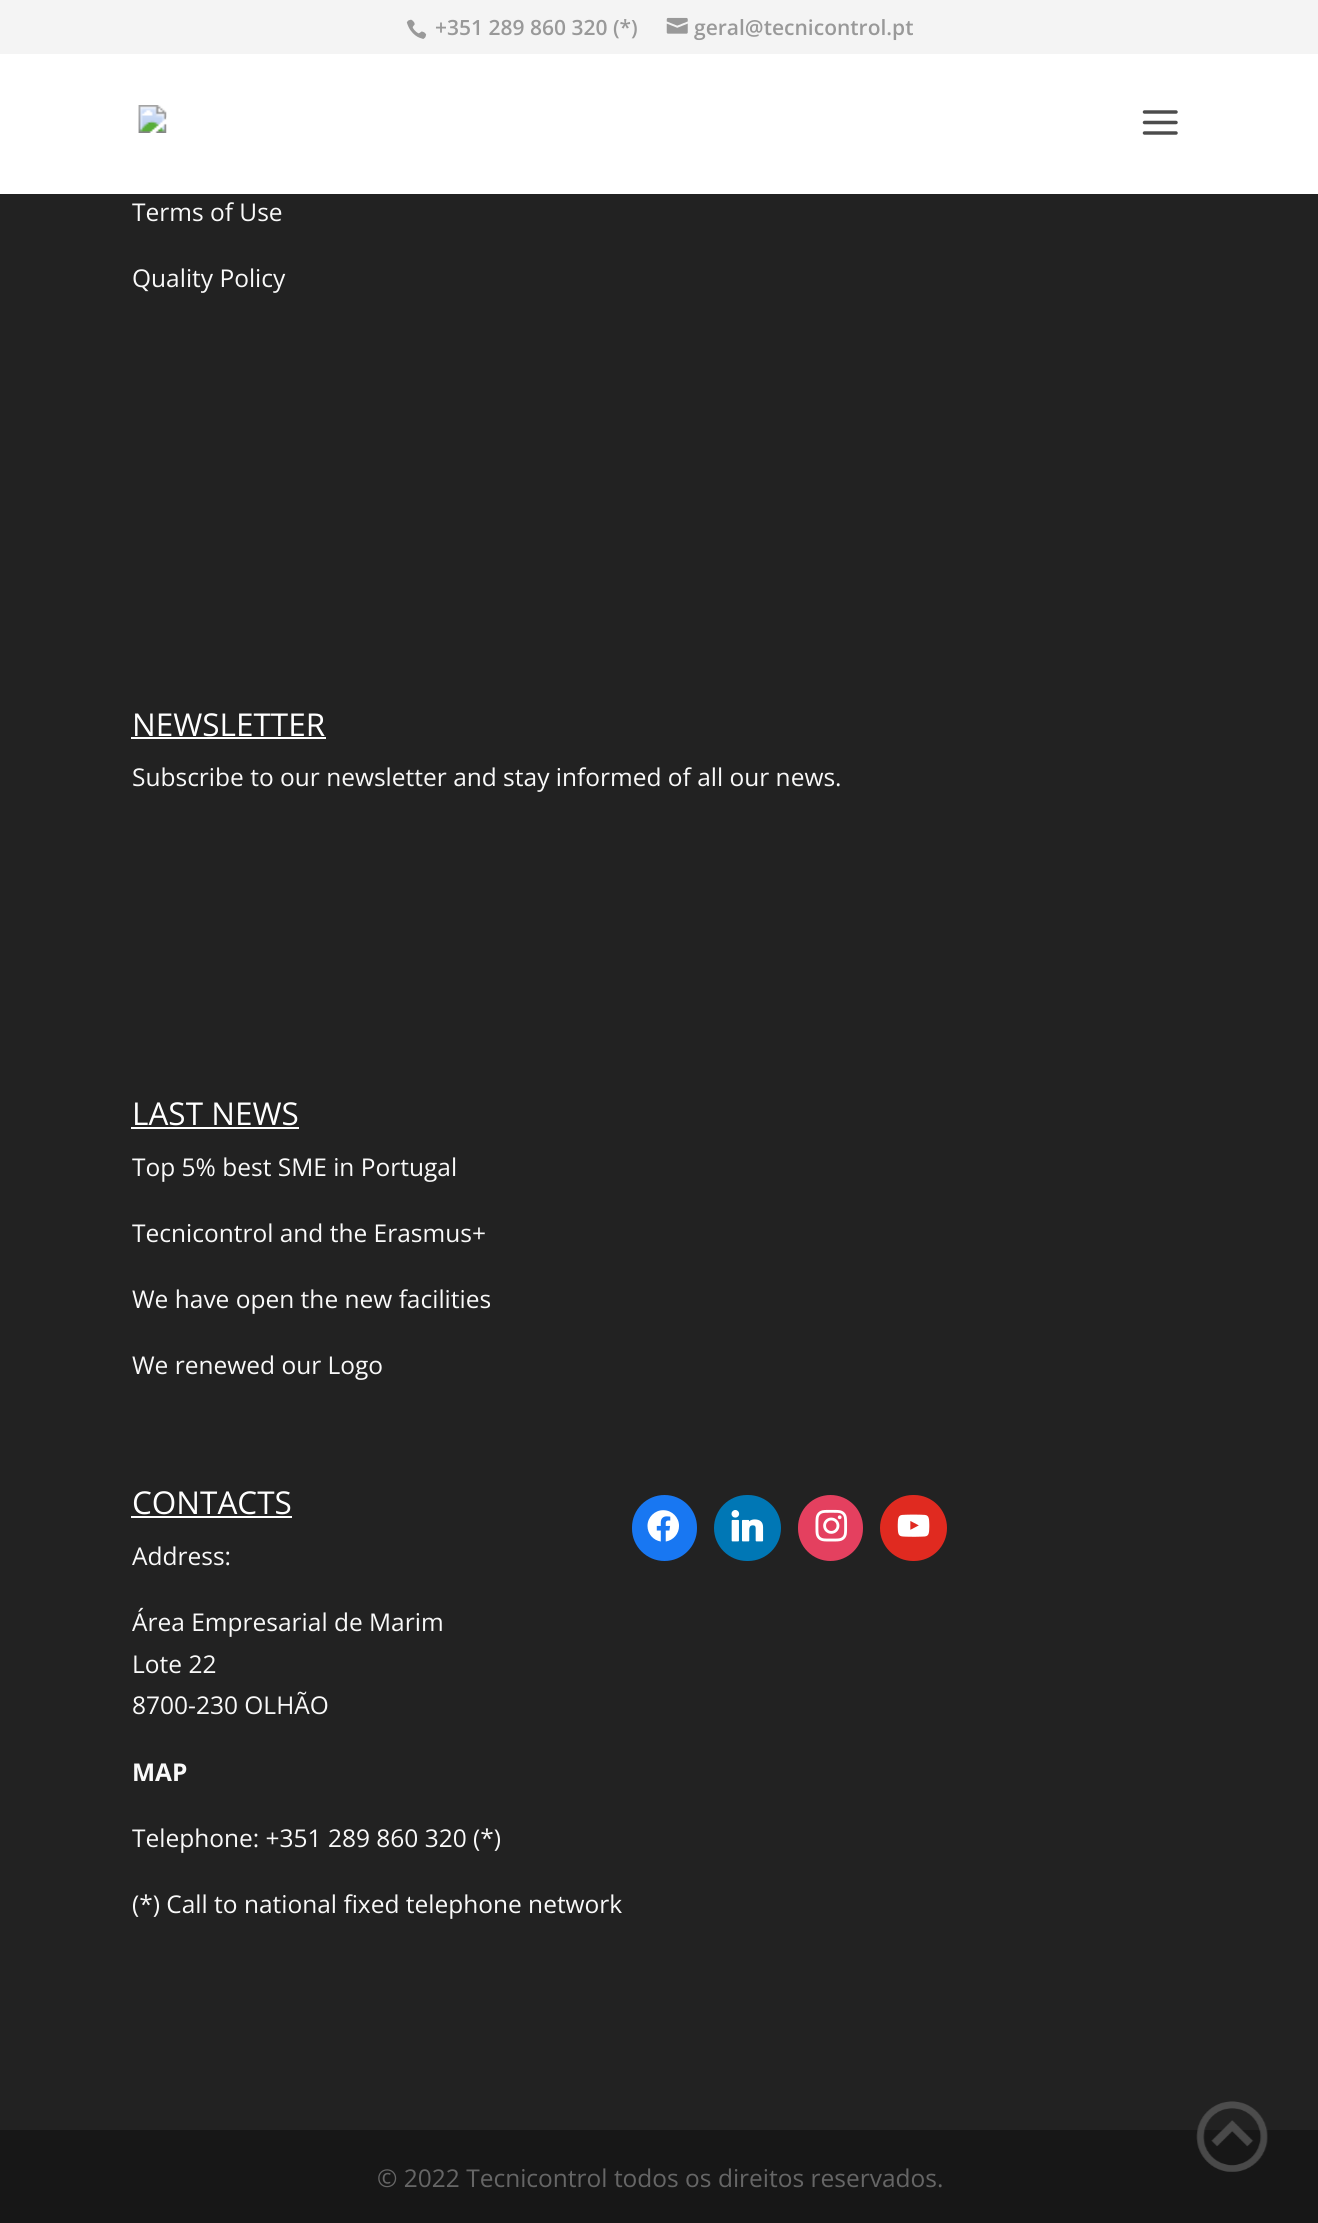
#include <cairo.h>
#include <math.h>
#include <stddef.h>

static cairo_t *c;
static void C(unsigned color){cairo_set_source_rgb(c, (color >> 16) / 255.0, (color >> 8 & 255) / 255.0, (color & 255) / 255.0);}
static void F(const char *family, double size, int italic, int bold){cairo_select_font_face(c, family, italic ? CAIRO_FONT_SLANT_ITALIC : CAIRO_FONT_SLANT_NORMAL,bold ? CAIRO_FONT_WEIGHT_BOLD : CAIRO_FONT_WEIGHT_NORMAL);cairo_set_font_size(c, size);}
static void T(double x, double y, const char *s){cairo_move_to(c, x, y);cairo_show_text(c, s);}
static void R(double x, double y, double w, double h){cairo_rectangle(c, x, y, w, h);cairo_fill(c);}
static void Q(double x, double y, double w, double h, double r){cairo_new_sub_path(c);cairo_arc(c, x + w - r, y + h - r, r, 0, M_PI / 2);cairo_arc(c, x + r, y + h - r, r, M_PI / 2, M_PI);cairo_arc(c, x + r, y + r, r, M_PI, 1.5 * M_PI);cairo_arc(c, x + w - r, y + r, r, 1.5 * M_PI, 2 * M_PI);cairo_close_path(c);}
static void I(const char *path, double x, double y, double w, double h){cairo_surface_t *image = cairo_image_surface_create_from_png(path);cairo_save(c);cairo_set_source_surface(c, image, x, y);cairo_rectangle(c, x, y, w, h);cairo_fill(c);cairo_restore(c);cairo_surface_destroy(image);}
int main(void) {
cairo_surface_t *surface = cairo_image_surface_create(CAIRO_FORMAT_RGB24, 1318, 2223);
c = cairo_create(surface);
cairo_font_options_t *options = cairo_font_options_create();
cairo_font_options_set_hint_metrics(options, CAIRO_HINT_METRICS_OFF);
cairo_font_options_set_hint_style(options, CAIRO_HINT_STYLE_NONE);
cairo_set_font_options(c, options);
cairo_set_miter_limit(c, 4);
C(0x222222);
cairo_paint(c);
C(0xf4f4f4);
R(0,0,1318,54);
I("1.png",406,19,21,20);
F("Open Sans SemiBold",21,0,0);
C(0x999999);
T(435,35,"+351 289 860 320 (*)");
I("2.png",666,17,22,17);
T(694,35,"geral@tecnicontrol.pt");
C(0xffffff);
R(0,54,1318,140);
I("3.png",138,105,29,28);
I("4.png",1142,110,36,25);
F("Open Sans",24.5,0,0);
C(0xf9f9f9);
T(132,221,"Terms of Use");
T(132,287,"Quality Policy");
F("Open Sans",31.5,0,0);
C(0xffffff);
T(132,736,"NEWSLETTER");
R(131,737,195,2);
F("Open Sans",24.5,0,0);
C(0xf9f9f9);
T(132,786,"Subscribe to our newsletter and stay informed of all our news.");
F("Open Sans",31.5,0,0);
C(0xffffff);
T(132,1125,"LAST NEWS");
R(131,1127,168,2);
F("Open Sans",24.5,0,0);
C(0xf9f9f9);
T(132,1176,"Top 5% best SME in Portugal");
T(132,1242,"Tecnicontrol and the Erasmus+");
T(132,1308,"We have open the new facilities");
T(132,1374,"We renewed our Logo");
F("Open Sans",31.5,0,0);
C(0xffffff);
T(132,1514,"CONTACTS");
R(131,1516,161,2);
F("Open Sans",24.5,0,0);
C(0xf9f9f9);
T(132,1565,"Address:");
T(132,1631,"Área Empresarial de Marim");
T(132,1673,"Lote 22");
T(132,1714,"8700-230 OLHÃO");
F("Open Sans",24.5,0,1);
T(132,1781,"MAP");
F("Open Sans",24.5,0,0);
T(132,1847,"Telephone: +351 289 860 320 (*)");
T(132,1913,"(*) Call to national fixed telephone network");
C(0x1877f2);
Q(632,1495,65,66,32.5);
cairo_fill(c);
I("5.png",647,1510,32,32);
C(0x0077b5);
Q(714,1495,67,66,33);
cairo_fill(c);
I("6.png",731,1510,33,32);
C(0xe4405f);
Q(798,1495,65,66,32.5);
cairo_fill(c);
I("7.png",815,1509,33,33);
C(0xe02a20);
Q(880,1495,67,66,33);
cairo_fill(c);
I("8.png",897,1514,33,23);
C(0x171717);
R(0,2130,1318,93);
C(0x666666);
T(377,2187,"© 2022 Tecnicontrol todos os direitos reservados.");
I("9.png",1196,2101,72,71);
cairo_surface_write_to_png(surface, "o.png");
cairo_font_options_destroy(options);
cairo_destroy(c);
cairo_surface_destroy(surface);
return 0;
}
